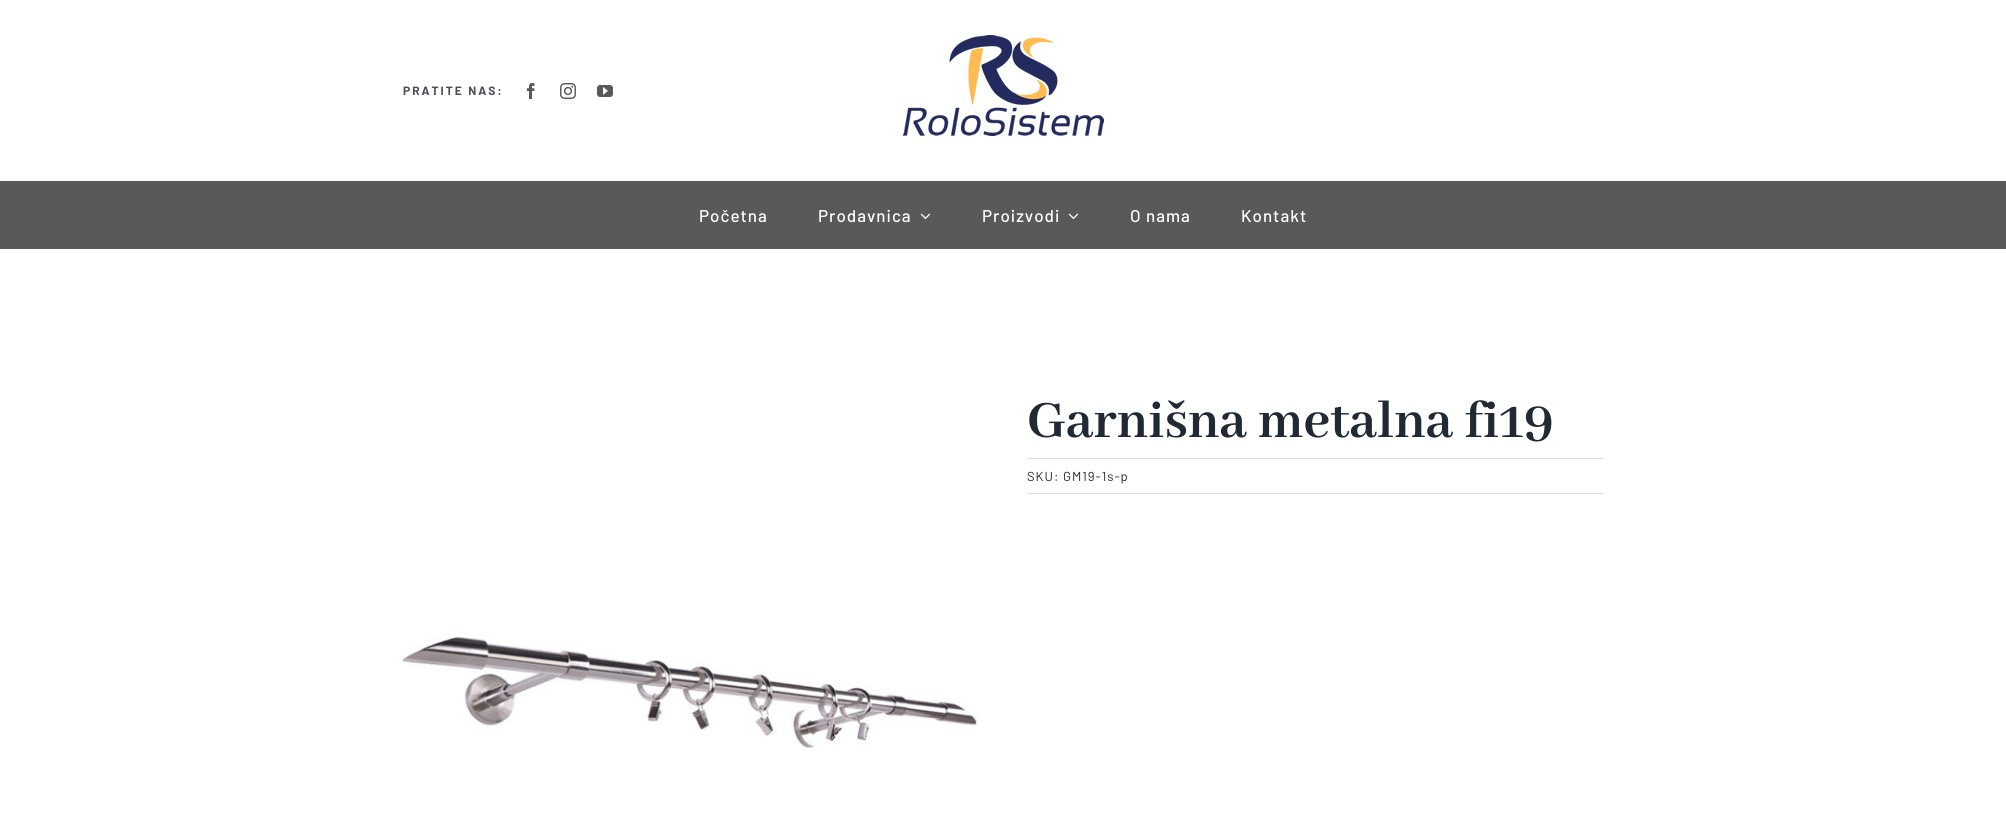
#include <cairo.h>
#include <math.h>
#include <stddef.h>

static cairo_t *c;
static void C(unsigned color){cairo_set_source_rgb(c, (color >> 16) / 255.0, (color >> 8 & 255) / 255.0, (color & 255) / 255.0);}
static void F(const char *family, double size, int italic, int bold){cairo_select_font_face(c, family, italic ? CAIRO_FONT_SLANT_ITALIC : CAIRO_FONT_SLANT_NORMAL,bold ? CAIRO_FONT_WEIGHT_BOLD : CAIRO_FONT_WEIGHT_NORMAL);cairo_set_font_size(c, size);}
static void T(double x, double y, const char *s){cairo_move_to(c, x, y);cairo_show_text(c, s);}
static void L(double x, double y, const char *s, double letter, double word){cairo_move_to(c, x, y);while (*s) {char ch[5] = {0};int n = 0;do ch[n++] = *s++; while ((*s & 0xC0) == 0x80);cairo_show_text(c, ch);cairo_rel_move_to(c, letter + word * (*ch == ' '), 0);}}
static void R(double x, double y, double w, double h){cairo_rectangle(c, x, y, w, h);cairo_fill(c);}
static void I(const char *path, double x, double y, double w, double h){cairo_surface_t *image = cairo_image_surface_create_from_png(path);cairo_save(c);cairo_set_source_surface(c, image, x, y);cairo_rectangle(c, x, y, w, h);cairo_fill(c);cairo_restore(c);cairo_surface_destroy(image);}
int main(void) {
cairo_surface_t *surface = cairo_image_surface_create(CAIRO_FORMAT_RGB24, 2006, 834);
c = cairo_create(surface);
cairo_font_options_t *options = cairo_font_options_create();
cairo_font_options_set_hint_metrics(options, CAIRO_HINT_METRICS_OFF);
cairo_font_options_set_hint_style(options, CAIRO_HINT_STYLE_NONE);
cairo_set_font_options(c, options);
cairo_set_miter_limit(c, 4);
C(0xffffff);
cairo_paint(c);
F("Barlow",12,0,1);
C(0x4a4e57);
L(403,95,"PRATITE NAS:",2,0);
I("1.png",527,83,8,16);
I("2.png",560,83,16,16);
I("3.png",597,85,16,12);
I("4.png",903,35,201,101);
C(0x595959);
R(0,181,2006,68);
F("Barlow Medium",17,0,0);
C(0xffffff);
L(699,222,"Početna",1,0);
L(818,222,"Prodavnica",1,0);
I("5.png",920,213,11,7);
L(982,222,"Proizvodi",1,0);
I("5.png",1068,213,11,7);
L(1130,222,"O nama",1,0);
L(1241,222,"Kontakt",1,0);
F("Abhaya Libre",57.5,0,1);
C(0x212934);
T(1027,437,"Garnišna metalna fi19");
C(0xe2e2e2);
R(1027,458,576,1);
R(1027,493,576,1);
F("Barlow",13,0,0);
C(0x212934);
L(1027,481,"SKU: GM19-1s-p",1,0);
I("6.png",403,636,576,115);
cairo_surface_write_to_png(surface, "o.png");
cairo_font_options_destroy(options);
cairo_destroy(c);
cairo_surface_destroy(surface);
return 0;
}
